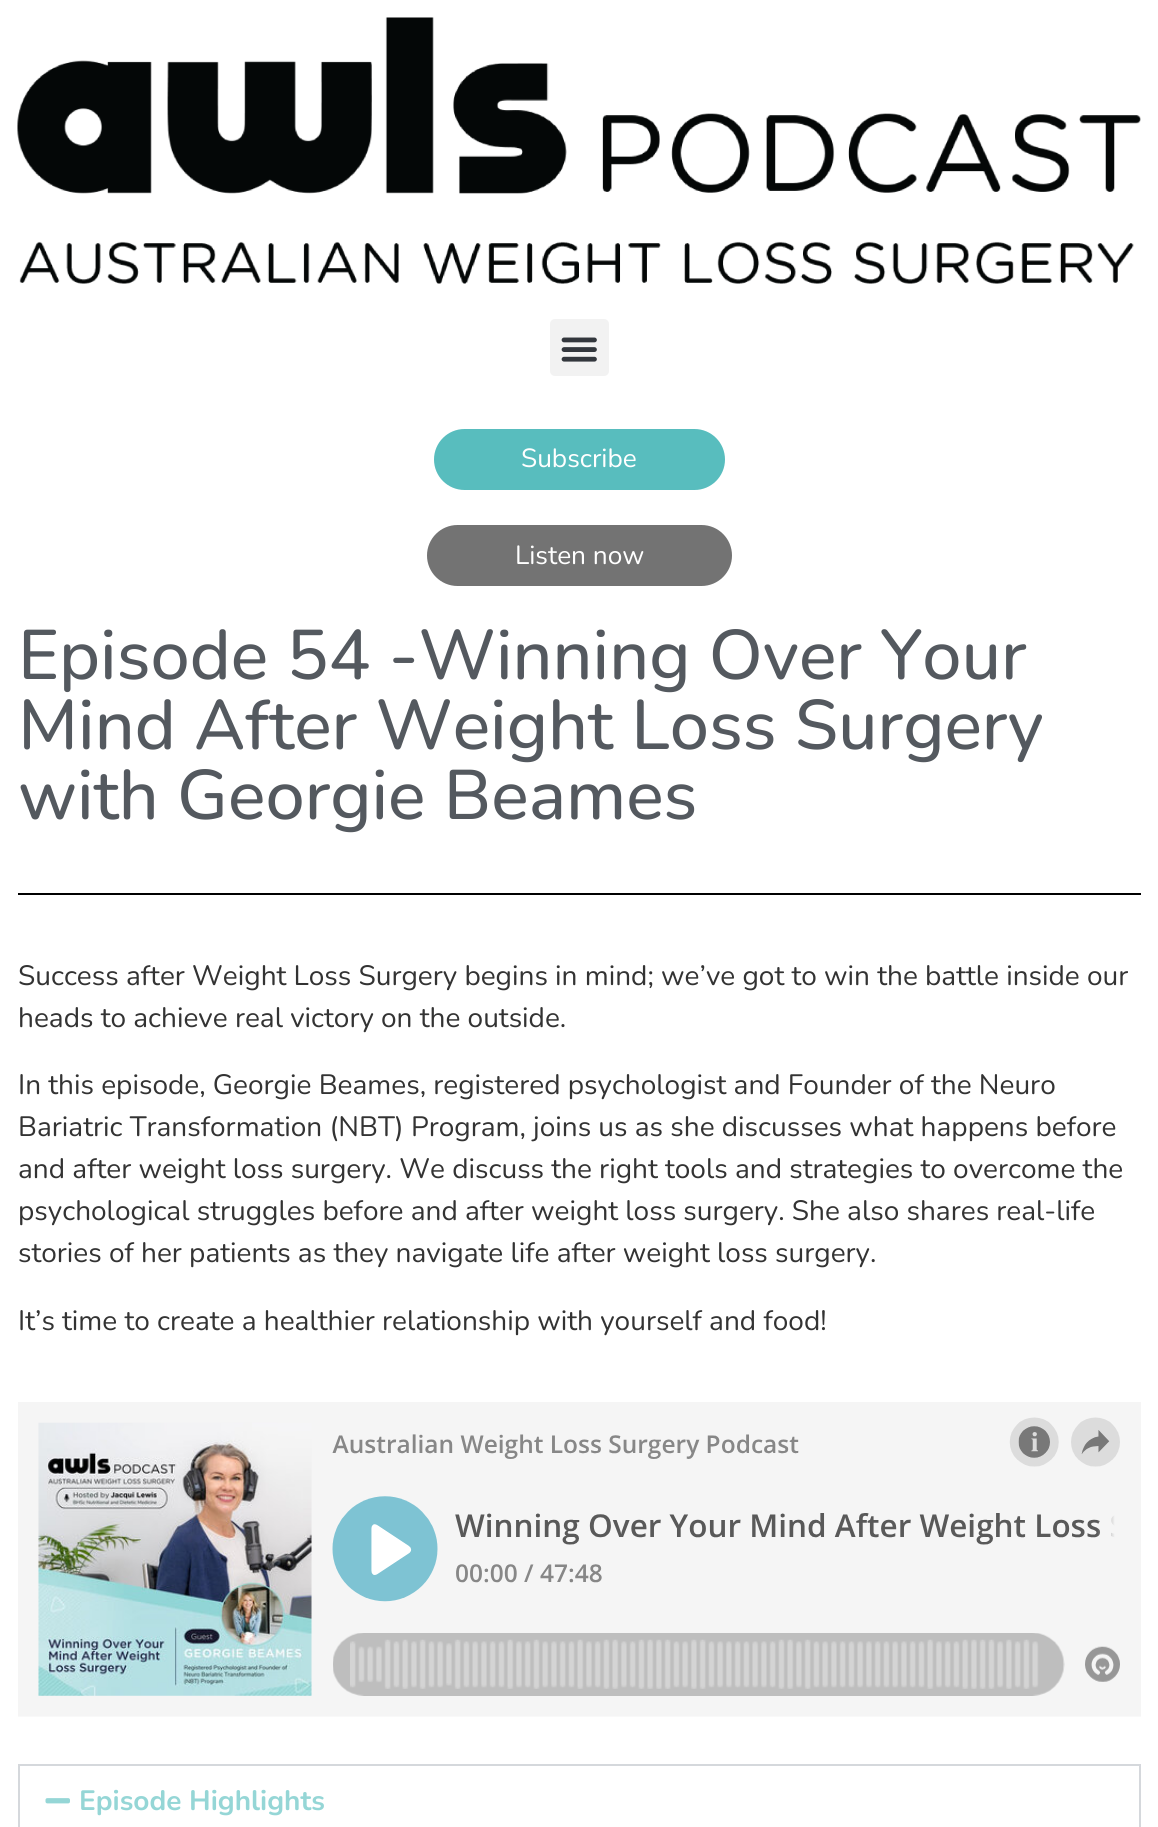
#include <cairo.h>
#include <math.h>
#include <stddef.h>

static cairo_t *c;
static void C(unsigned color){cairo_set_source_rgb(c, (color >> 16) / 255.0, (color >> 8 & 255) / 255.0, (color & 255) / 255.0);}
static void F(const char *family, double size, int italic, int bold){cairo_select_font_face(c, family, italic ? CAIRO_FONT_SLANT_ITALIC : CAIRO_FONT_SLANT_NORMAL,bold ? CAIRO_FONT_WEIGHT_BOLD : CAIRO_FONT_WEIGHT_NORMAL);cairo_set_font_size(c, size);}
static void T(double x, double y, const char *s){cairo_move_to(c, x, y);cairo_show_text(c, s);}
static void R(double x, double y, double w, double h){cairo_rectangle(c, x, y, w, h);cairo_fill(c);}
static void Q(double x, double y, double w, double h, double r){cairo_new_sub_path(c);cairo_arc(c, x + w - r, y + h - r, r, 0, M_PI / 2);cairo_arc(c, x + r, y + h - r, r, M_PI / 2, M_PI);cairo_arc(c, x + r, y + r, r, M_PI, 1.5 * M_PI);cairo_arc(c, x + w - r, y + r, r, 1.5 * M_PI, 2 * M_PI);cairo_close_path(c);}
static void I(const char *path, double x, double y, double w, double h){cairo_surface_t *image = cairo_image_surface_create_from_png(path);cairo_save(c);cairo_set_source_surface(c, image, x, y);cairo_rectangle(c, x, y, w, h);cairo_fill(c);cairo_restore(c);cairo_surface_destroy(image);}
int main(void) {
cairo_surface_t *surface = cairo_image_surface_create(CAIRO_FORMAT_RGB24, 1158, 1827);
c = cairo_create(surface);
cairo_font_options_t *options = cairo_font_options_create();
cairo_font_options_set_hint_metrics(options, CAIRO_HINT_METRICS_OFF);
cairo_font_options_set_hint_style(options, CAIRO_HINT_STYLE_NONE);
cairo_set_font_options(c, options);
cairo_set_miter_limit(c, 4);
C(0xffffff);
cairo_paint(c);
I("1.png",17,17,1124,267);
C(0xf2f2f2);
Q(550,319,59,57,5);
cairo_fill(c);
I("2.png",561,337,36,25);
C(0x58bdbe);
Q(434,429,291,61,30.5);
cairo_fill(c);
F("Nunito",26.25,0,0);
C(0xffffff);
T(521,467,"Subscribe");
C(0x737373);
Q(427,525,305,61,30.5);
cairo_fill(c);
C(0xffffff);
T(515,564,"Listen now");
F("Nunito Medium",70,0,0);
C(0x54595f);
T(18,679,"Episode 54 -Winning Over Your");
T(18,749,"Mind After Weight Loss Surgery");
T(18,819,"with Georgie Beames");
C(0x000000);
R(18,893,1123,2);
F("Nunito",28,0,0);
C(0x333333);
T(18,985,"Success after Weight Loss Surgery begins in mind; we’ve got to win the battle inside our");
T(18,1027,"heads to achieve real victory on the outside.");
T(18,1094,"In this episode, Georgie Beames, registered psychologist and Founder of the Neuro");
T(18,1136,"Bariatric Transformation (NBT) Program, joins us as she discusses what happens before");
T(18,1178,"and after weight loss surgery. We discuss the right tools and strategies to overcome the");
T(18,1220,"psychological struggles before and after weight loss surgery. She also shares real-life");
T(18,1262,"stories of her patients as they navigate life after weight loss surgery.");
T(18,1330,"It’s time to create a healthier relationship with yourself and food!");
I("3.png",18,1402,1123,315);
cairo_rectangle(c,19,1765,1121,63);
C(0xd5d8dc);
cairo_stroke(c);
I("4.png",45,1798,25,6);
F("Nunito",28,0,1);
C(0x95d6d6);
T(79,1810,"Episode Highlights");
cairo_surface_write_to_png(surface, "o.png");
cairo_font_options_destroy(options);
cairo_destroy(c);
cairo_surface_destroy(surface);
return 0;
}
